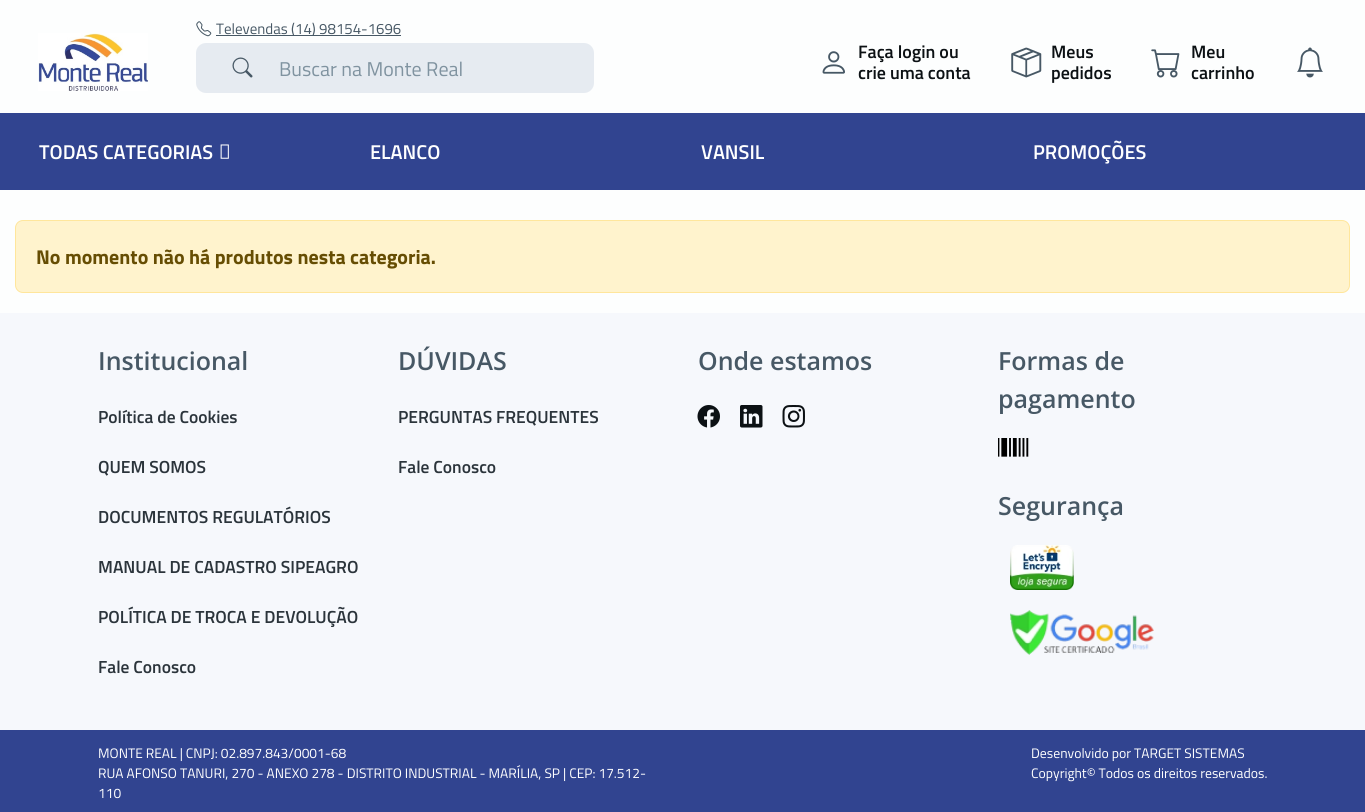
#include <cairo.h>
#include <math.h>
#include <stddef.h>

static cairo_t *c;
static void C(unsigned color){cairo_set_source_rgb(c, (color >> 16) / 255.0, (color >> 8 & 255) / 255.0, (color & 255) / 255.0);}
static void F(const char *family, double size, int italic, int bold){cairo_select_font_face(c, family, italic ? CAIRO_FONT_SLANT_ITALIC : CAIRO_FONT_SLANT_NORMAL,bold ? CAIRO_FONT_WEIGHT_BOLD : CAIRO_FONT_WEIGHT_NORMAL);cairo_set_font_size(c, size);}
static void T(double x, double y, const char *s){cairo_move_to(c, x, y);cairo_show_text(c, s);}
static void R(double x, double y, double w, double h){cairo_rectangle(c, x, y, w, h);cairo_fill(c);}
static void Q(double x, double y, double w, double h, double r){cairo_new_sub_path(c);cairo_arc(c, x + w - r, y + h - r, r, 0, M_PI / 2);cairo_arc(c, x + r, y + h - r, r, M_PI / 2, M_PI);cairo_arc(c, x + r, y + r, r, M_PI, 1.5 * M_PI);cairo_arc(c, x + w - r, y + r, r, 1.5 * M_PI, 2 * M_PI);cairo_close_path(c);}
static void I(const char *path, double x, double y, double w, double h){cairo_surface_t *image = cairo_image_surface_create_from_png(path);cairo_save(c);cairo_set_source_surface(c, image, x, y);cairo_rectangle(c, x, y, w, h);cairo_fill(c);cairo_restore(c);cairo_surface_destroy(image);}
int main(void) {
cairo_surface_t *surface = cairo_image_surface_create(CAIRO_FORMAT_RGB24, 1365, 812);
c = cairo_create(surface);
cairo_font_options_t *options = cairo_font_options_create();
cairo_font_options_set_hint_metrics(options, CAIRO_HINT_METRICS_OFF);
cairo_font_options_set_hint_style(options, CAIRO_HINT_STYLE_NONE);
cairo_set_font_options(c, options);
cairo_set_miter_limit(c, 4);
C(0xfdfefe);
cairo_paint(c);
I("1.png",38,33,110,58);
I("2.png",196,21,16,16);
C(0x475865);
R(216,35,185,1);
F("Titillium Web",15,0,0);
T(216,34,"Televendas (14) 98154-1696");
C(0xe6ebf1);
Q(196,43,398,50,10);
cairo_fill(c);
I("3.png",232,57,21,21);
F("Titillium Web",20,0,0);
C(0x8093a0);
T(279,76,"Buscar na Monte Real");
I("4.png",822,51,23,23);
F("Titillium Web SemiBold",18,0,0);
C(0x0c1114);
T(858,58,"Faça login ou");
T(858,79,"crie uma conta");
I("5.png",1011,47,31,31);
T(1051,58,"Meus");
T(1051,79,"pedidos");
I("6.png",1151,49,29,29);
T(1191,58,"Meu");
T(1191,79,"carrinho");
I("7.png",1297,47,26,31);
C(0x314490);
R(0,113,1365,77);
F("Titillium Web SemiBold",20,0,0);
C(0xffffff);
T(39,159,"TODAS CATEGORIAS");
I("8.png",220,144,9,15);
T(370,159,"ELANCO");
T(701,159,"VANSIL");
T(1033,159,"PROMOÇÕES");
C(0xfff3cd);
Q(15.5,220.5,1334,72,7.5);
cairo_fill_preserve(c);
C(0xffe69c);
cairo_set_line_width(c,1);
cairo_stroke(c);
F("Titillium Web",20,0,1);
C(0x664d03);
T(36,264,"No momento não há produtos nesta categoria.");
C(0xf6f8fc);
R(0,313,1365,417);
F("Open Sans SemiBold",25,0,0);
C(0x475865);
T(98,370,"Institucional");
F("Titillium Web SemiBold",17.5,0,0);
C(0x2b343b);
T(98,423,"Política de Cookies");
T(98,473,"QUEM SOMOS");
T(98,523,"DOCUMENTOS REGULATÓRIOS");
T(98,573,"MANUAL DE CADASTRO SIPEAGRO");
T(98,623,"POLÍTICA DE TROCA E DEVOLUÇÃO");
T(98,673,"Fale Conosco");
F("Open Sans SemiBold",25,0,0);
C(0x475865);
T(398,370,"DÚVIDAS");
F("Titillium Web SemiBold",17.5,0,0);
C(0x2b343b);
T(398,423,"PERGUNTAS FREQUENTES");
T(398,473,"Fale Conosco");
F("Open Sans SemiBold",25,0,0);
C(0x475865);
T(698,370,"Onde estamos");
I("9.png",697,405,23,23);
I("10.png",740,405,23,23);
I("11.png",782,405,23,23);
T(998,370,"Formas de");
T(998,408,"pagamento");
I("12.png",998,438,31,19);
T(998,515,"Segurança");
I("13.png",1010,545,64,45);
I("14.png",1010,610,144,45);
C(0x314490);
R(0,730,1365,82);
F("Titillium Web",13.75,0,0);
C(0xffffff);
T(98,758,"MONTE REAL | CNPJ: 02.897.843/0001-68");
T(98,778,"RUA AFONSO TANURI, 270 - ANEXO 278 - DISTRITO INDUSTRIAL - MARÍLIA, SP | CEP: 17.512-");
T(98,798,"110");
T(1031,758,"Desenvolvido por TARGET SISTEMAS");
T(1031,778,"Copyright© Todos os direitos reservados.");
cairo_surface_write_to_png(surface, "o.png");
cairo_font_options_destroy(options);
cairo_destroy(c);
cairo_surface_destroy(surface);
return 0;
}
